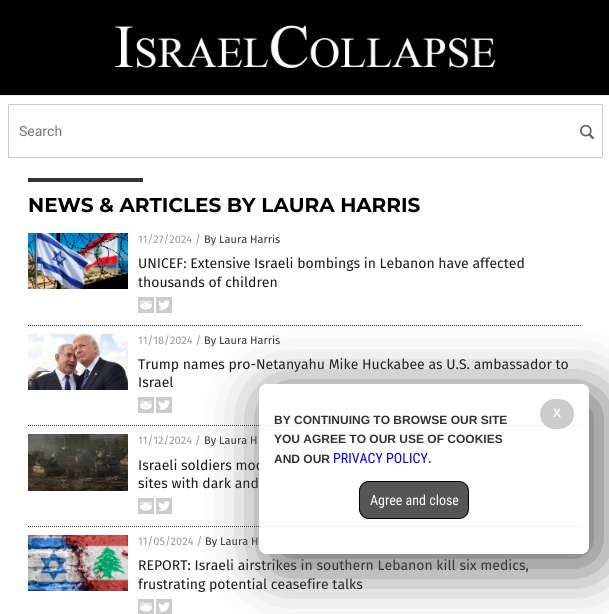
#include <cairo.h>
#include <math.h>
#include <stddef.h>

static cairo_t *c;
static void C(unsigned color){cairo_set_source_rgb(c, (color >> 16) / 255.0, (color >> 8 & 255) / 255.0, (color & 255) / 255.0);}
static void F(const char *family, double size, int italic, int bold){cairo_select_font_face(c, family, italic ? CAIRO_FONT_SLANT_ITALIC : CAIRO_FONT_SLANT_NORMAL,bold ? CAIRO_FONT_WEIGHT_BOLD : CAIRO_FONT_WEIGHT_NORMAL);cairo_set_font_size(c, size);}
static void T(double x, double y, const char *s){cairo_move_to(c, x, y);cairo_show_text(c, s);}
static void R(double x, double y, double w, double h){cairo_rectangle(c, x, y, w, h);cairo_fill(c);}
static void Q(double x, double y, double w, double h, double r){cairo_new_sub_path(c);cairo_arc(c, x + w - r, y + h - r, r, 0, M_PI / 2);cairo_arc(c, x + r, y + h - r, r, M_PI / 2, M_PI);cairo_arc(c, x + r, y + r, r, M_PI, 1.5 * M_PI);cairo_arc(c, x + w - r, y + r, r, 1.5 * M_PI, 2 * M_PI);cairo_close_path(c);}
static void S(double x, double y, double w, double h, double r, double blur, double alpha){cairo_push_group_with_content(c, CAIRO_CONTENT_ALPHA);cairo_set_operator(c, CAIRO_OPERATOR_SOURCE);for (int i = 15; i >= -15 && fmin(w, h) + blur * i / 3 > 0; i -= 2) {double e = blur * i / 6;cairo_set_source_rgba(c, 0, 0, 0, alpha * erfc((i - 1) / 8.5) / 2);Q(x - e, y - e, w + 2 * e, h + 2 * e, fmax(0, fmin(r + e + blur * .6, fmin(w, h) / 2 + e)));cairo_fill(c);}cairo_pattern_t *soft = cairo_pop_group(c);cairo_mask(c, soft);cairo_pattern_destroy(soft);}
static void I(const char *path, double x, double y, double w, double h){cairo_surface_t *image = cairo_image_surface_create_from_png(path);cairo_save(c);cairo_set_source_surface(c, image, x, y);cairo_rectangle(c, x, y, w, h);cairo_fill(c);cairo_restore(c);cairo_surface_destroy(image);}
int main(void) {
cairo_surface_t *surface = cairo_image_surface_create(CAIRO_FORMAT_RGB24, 609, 614);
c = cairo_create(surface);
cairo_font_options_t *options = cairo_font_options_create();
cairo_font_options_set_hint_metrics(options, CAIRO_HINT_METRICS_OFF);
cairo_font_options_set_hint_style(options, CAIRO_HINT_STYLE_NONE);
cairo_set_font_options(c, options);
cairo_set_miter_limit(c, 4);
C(0x000000);
cairo_paint(c);
I("1.png",114,25,382,43);
C(0xffffff);
R(0,96,609,518);
C(0xececec);
R(0,95,609,1);
cairo_rectangle(c,8.5,104.5,594,53);
C(0xcccccc);
cairo_set_line_width(c,1);
cairo_stroke(c);
F("Roboto",14,0,0);
C(0x757575);
T(19,136,"Search");
I("2.png",580,124,14,16);
C(0x343434);
R(28,178,115,4);
F("Montserrat",20,0,1);
C(0x000000);
T(28,212,"NEWS & ARTICLES BY LAURA HARRIS");
cairo_new_path(c);
cairo_move_to(c,28,325.5);
cairo_line_to(c,581,325.5);
C(0x343434);
cairo_set_dash(c,(double[]){1,1},2,0);
cairo_stroke(c);
I("3.png",28,233,100,56);
F("Fira Sans",11,0,0);
C(0x999999);
T(138,243,"11/27/2024 /");
C(0x333333);
T(204,243,"By Laura Harris");
F("Fira Sans",14,0,0);
C(0x1a1a1a);
T(138,268,"UNICEF: Extensive Israeli bombings in Lebanon have affected");
T(138,287,"thousands of children");
I("4.png",138,297,16,16);
I("5.png",156,297,16,16);
cairo_new_path(c);
cairo_move_to(c,28,425.5);
cairo_line_to(c,581,425.5);
C(0x343434);
cairo_stroke(c);
I("6.png",28,334,100,56);
F("Fira Sans",11,0,0);
C(0x999999);
T(138,344,"11/18/2024 /");
C(0x333333);
T(204,344,"By Laura Harris");
F("Fira Sans",14,0,0);
C(0x1a1a1a);
T(138,369,"Trump names pro-Netanyahu Mike Huckabee as U.S. ambassador to");
T(138,387,"Israel");
I("4.png",138,397,16,16);
I("5.png",156,397,16,16);
cairo_new_path(c);
cairo_move_to(c,28,526.5);
cairo_line_to(c,581,526.5);
C(0x343434);
cairo_stroke(c);
I("7.png",28,434,100,57);
F("Fira Sans",11,0,0);
C(0x999999);
T(138,444,"11/12/2024 /");
C(0x333333);
T(204,444,"By Laura H");
F("Fira Sans",14,0,0);
C(0x1a1a1a);
T(138,470,"Israeli soldiers moc");
T(138,488,"sites with dark and");
I("4.png",138,498,16,16);
I("5.png",156,498,16,16);
I("8.png",28,535,100,56);
F("Fira Sans",11,0,0);
C(0x999999);
T(138,545,"11/05/2024 /");
C(0x333333);
T(205,545,"By Laura H");
F("Fira Sans",14,0,0);
C(0x1a1a1a);
T(138,570,"REPORT: Israeli airstrikes in southern Lebanon kill six medics,");
T(138,589,"frustrating potential ceasefire talks");
I("9.png",138,599,16,15);
I("10.png",156,599,16,15);
cairo_save(c);
cairo_set_fill_rule(c,CAIRO_FILL_RULE_EVEN_ODD);
cairo_new_path(c);
cairo_move_to(c,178,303);
cairo_line_to(c,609,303);
cairo_line_to(c,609,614);
cairo_line_to(c,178,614);
cairo_close_path(c);
cairo_move_to(c,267,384);
cairo_line_to(c,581,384);
cairo_curve_to(c,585.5,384,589,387.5,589,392);
cairo_line_to(c,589,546);
cairo_curve_to(c,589,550.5,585.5,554,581,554);
cairo_line_to(c,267,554);
cairo_curve_to(c,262.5,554,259,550.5,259,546);
cairo_line_to(c,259,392);
cairo_curve_to(c,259,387.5,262.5,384,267,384);
cairo_close_path(c);
cairo_clip(c);
C(0x555555);
S(269,394,330,170,8,30,1);
cairo_restore(c);
cairo_set_source_rgba(c,1,1,1,0.9);
Q(259,384,330,170,8);
cairo_fill(c);
C(0xcccccc);
Q(540,399,34,30,15);
cairo_fill(c);
F("Liberation Sans",12,0,1);
C(0xffffff);
T(553,417,"X");
C(0x333333);
T(274,424,"BY CONTINUING TO BROWSE OUR SITE");
T(274,443,"YOU AGREE TO OUR USE OF COOKIES");
T(274,463,"AND OUR");
F("Roboto Condensed",14,0,0);
C(0x0000ff);
T(333,463,"PRIVACY POLICY");
F("Liberation Sans",12,0,1);
C(0x333333);
T(428,463,".");
C(0x555555);
Q(359.5,481.5,109,37,9.5);
cairo_fill_preserve(c);
C(0x000000);
cairo_set_dash(c,NULL,0,0);
cairo_stroke(c);
F("Roboto Condensed",14,0,0);
C(0xffffff);
T(370,505,"Agree and close");
cairo_surface_write_to_png(surface, "o.png");
cairo_font_options_destroy(options);
cairo_destroy(c);
cairo_surface_destroy(surface);
return 0;
}
